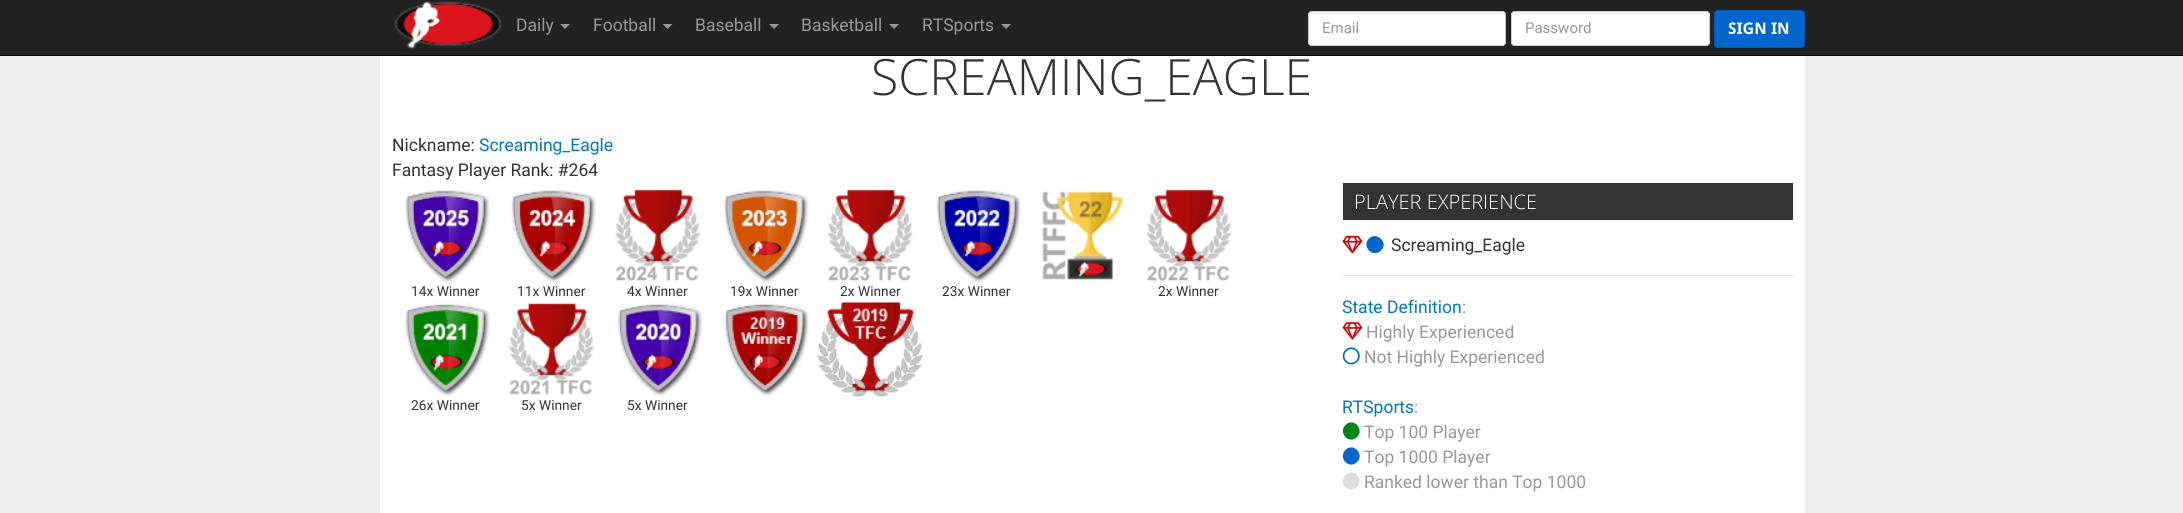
#include <cairo.h>
#include <math.h>
#include <stddef.h>

static cairo_t *c;
static void C(unsigned color){cairo_set_source_rgb(c, (color >> 16) / 255.0, (color >> 8 & 255) / 255.0, (color & 255) / 255.0);}
static void F(const char *family, double size, int italic, int bold){cairo_select_font_face(c, family, italic ? CAIRO_FONT_SLANT_ITALIC : CAIRO_FONT_SLANT_NORMAL,bold ? CAIRO_FONT_WEIGHT_BOLD : CAIRO_FONT_WEIGHT_NORMAL);cairo_set_font_size(c, size);}
static void T(double x, double y, const char *s){cairo_move_to(c, x, y);cairo_show_text(c, s);}
static void R(double x, double y, double w, double h){cairo_rectangle(c, x, y, w, h);cairo_fill(c);}
static void Q(double x, double y, double w, double h, double r){cairo_new_sub_path(c);cairo_arc(c, x + w - r, y + h - r, r, 0, M_PI / 2);cairo_arc(c, x + r, y + h - r, r, M_PI / 2, M_PI);cairo_arc(c, x + r, y + r, r, M_PI, 1.5 * M_PI);cairo_arc(c, x + w - r, y + r, r, 1.5 * M_PI, 2 * M_PI);cairo_close_path(c);}
static void I(const char *path, double x, double y, double w, double h){cairo_surface_t *image = cairo_image_surface_create_from_png(path);cairo_save(c);cairo_set_source_surface(c, image, x, y);cairo_rectangle(c, x, y, w, h);cairo_fill(c);cairo_restore(c);cairo_surface_destroy(image);}
int main(void) {
cairo_surface_t *surface = cairo_image_surface_create(CAIRO_FORMAT_RGB24, 2183, 513);
c = cairo_create(surface);
cairo_font_options_t *options = cairo_font_options_create();
cairo_font_options_set_hint_metrics(options, CAIRO_HINT_METRICS_OFF);
cairo_font_options_set_hint_style(options, CAIRO_HINT_STYLE_NONE);
cairo_set_font_options(c, options);
cairo_set_miter_limit(c, 4);
C(0xeeeeee);
cairo_paint(c);
C(0x222222);
R(0,0,2183,55);
C(0x080808);
R(0,55,2183,1);
I("1.png",394,1,108,48);
F("Roboto",17.5,0,0);
C(0x999999);
T(516,31,"Daily");
cairo_new_path(c);
cairo_move_to(c,560,24);
cairo_line_to(c,570,24);
cairo_line_to(c,565,29);
cairo_close_path(c);
cairo_fill(c);
T(593,31,"Football");
cairo_new_path(c);
cairo_move_to(c,662.5,24);
cairo_line_to(c,672.5,24);
cairo_line_to(c,667.5,29);
cairo_close_path(c);
cairo_fill(c);
T(695,31,"Baseball");
cairo_new_path(c);
cairo_move_to(c,769,24);
cairo_line_to(c,779,24);
cairo_line_to(c,774,29);
cairo_close_path(c);
cairo_fill(c);
T(801,31,"Basketball");
cairo_new_path(c);
cairo_move_to(c,889,24);
cairo_line_to(c,899,24);
cairo_line_to(c,894,29);
cairo_close_path(c);
cairo_fill(c);
T(922,31,"RTSports");
cairo_new_path(c);
cairo_move_to(c,1001,24);
cairo_line_to(c,1011,24);
cairo_line_to(c,1006,29);
cairo_close_path(c);
cairo_fill(c);
C(0xffffff);
Q(1308,11,198,35,4);
cairo_fill(c);
C(0xececec);
cairo_new_path(c);
cairo_move_to(c,1311,14);
cairo_line_to(c,1502,14);
cairo_curve_to(c,1504,14,1505,15,1505,16);
cairo_line_to(c,1505,14);
cairo_line_to(c,1503,13);
cairo_line_to(c,1312,13);
cairo_curve_to(c,1310,13,1309,14,1309,16);
cairo_curve_to(c,1309,15,1310,14,1311,14);
cairo_close_path(c);
cairo_fill(c);
Q(1308.5,11.5,197,34,3.5);
C(0xcccccc);
cairo_set_line_width(c,1);
cairo_stroke(c);
F("Roboto",15,0,0);
C(0x999999);
T(1322,33,"Email");
C(0xffffff);
Q(1511,11,199,35,4);
cairo_fill(c);
C(0xececec);
cairo_new_path(c);
cairo_move_to(c,1515,14);
cairo_line_to(c,1706,14);
cairo_curve_to(c,1708,14,1709,15,1709,16);
cairo_curve_to(c,1709,14,1708,13,1706,13);
cairo_line_to(c,1516,13);
cairo_curve_to(c,1514,13,1514,14,1513,15);
cairo_close_path(c);
cairo_fill(c);
Q(1511.5,11.5,198,34,3.5);
C(0xcccccc);
cairo_stroke(c);
C(0x999999);
T(1525,33,"Password");
C(0x0066cc);
Q(1714.5,10.5,90,37,3.5);
cairo_fill_preserve(c);
C(0x0059b3);
cairo_stroke(c);
F("Droid Sans",16,0,1);
C(0xffffff);
T(1728,34,"SIGN IN");
R(380,56,1425,457);
F("Open Sans Light",50,0,0);
C(0x333333);
T(871,95,"SCREAMING_EAGLE");
F("Roboto",17.5,0,0);
T(392,151,"Nickname:");
C(0x0077c0);
T(479,151,"Screaming_Eagle");
C(0x333333);
T(392,176,"Fantasy Player Rank: #264");
I("2.png",1042,191,81,90);
I("3.png",405,189,85,94);
F("Roboto",13.75,0,0);
T(411,296,"14x Winner");
I("4.png",511,189,85,94);
T(517,296,"11x Winner");
I("5.png",615,189,85,93);
T(627,296,"4x Winner");
I("6.png",724,189,85,94);
T(730,296,"19x Winner");
I("7.png",827,189,86,93);
T(840,296,"2x Winner");
I("8.png",936,189,85,94);
T(942,296,"23x Winner");
I("9.png",1146,189,86,93);
T(1158,296,"2x Winner");
I("10.png",724,303,85,93);
I("11.png",817,302,106,95);
I("12.png",405,303,85,93);
T(411,410,"26x Winner");
I("13.png",508,303,86,93);
T(521,410,"5x Winner");
I("14.png",617,303,86,93);
T(627,410,"5x Winner");
R(1343,183,450,37);
F("Open Sans Light",20,0,0);
C(0xffffff);
T(1354,209,"PLAYER EXPERIENCE");
I("15.png",1342,235,21,19);
C(0x0066cc);
cairo_new_path(c);
cairo_move_to(c,1369,238.5);
cairo_curve_to(c,1377,231,1389,243,1381,250.5);
cairo_curve_to(c,1373,258.5,1361,246.5,1369,238.5);
cairo_close_path(c);
cairo_fill(c);
F("Roboto",17.5,0,0);
C(0x333333);
T(1391,251,"Screaming_Eagle");
C(0xdddddd);
R(1343,275,450,1);
C(0x0077c0);
T(1342,313,"State Definition");
C(0x999999);
T(1462,313,":");
I("16.png",1342,322,21,18);
T(1366,338,"Highly Experienced");
I("17.png",1342,347,18,18);
T(1364,363,"Not Highly Experienced");
C(0x0077c0);
T(1342,413,"RTSports");
C(0x999999);
T(1414,413,":");
C(0x00851b);
cairo_new_path(c);
cairo_move_to(c,1345.5,425);
cairo_curve_to(c,1353,417,1365,429,1357,437);
cairo_curve_to(c,1349.5,445,1337.5,433,1345.5,425);
cairo_close_path(c);
cairo_fill(c);
C(0x999999);
T(1364,438,"Top 100 Player");
C(0x0066cc);
cairo_new_path(c);
cairo_move_to(c,1345.5,450);
cairo_curve_to(c,1353,442,1365,454,1357,462);
cairo_curve_to(c,1349.5,470,1337.5,458,1345.5,450);
cairo_close_path(c);
cairo_fill(c);
C(0x999999);
T(1364,463,"Top 1000 Player");
C(0xdddddd);
cairo_new_path(c);
cairo_move_to(c,1345.5,475);
cairo_curve_to(c,1353,467,1365,479,1357,487);
cairo_curve_to(c,1349.5,495,1337.5,483,1345.5,475);
cairo_close_path(c);
cairo_fill(c);
C(0x999999);
T(1364,488,"Ranked lower than Top 1000");
cairo_surface_write_to_png(surface, "o.png");
cairo_font_options_destroy(options);
cairo_destroy(c);
cairo_surface_destroy(surface);
return 0;
}
